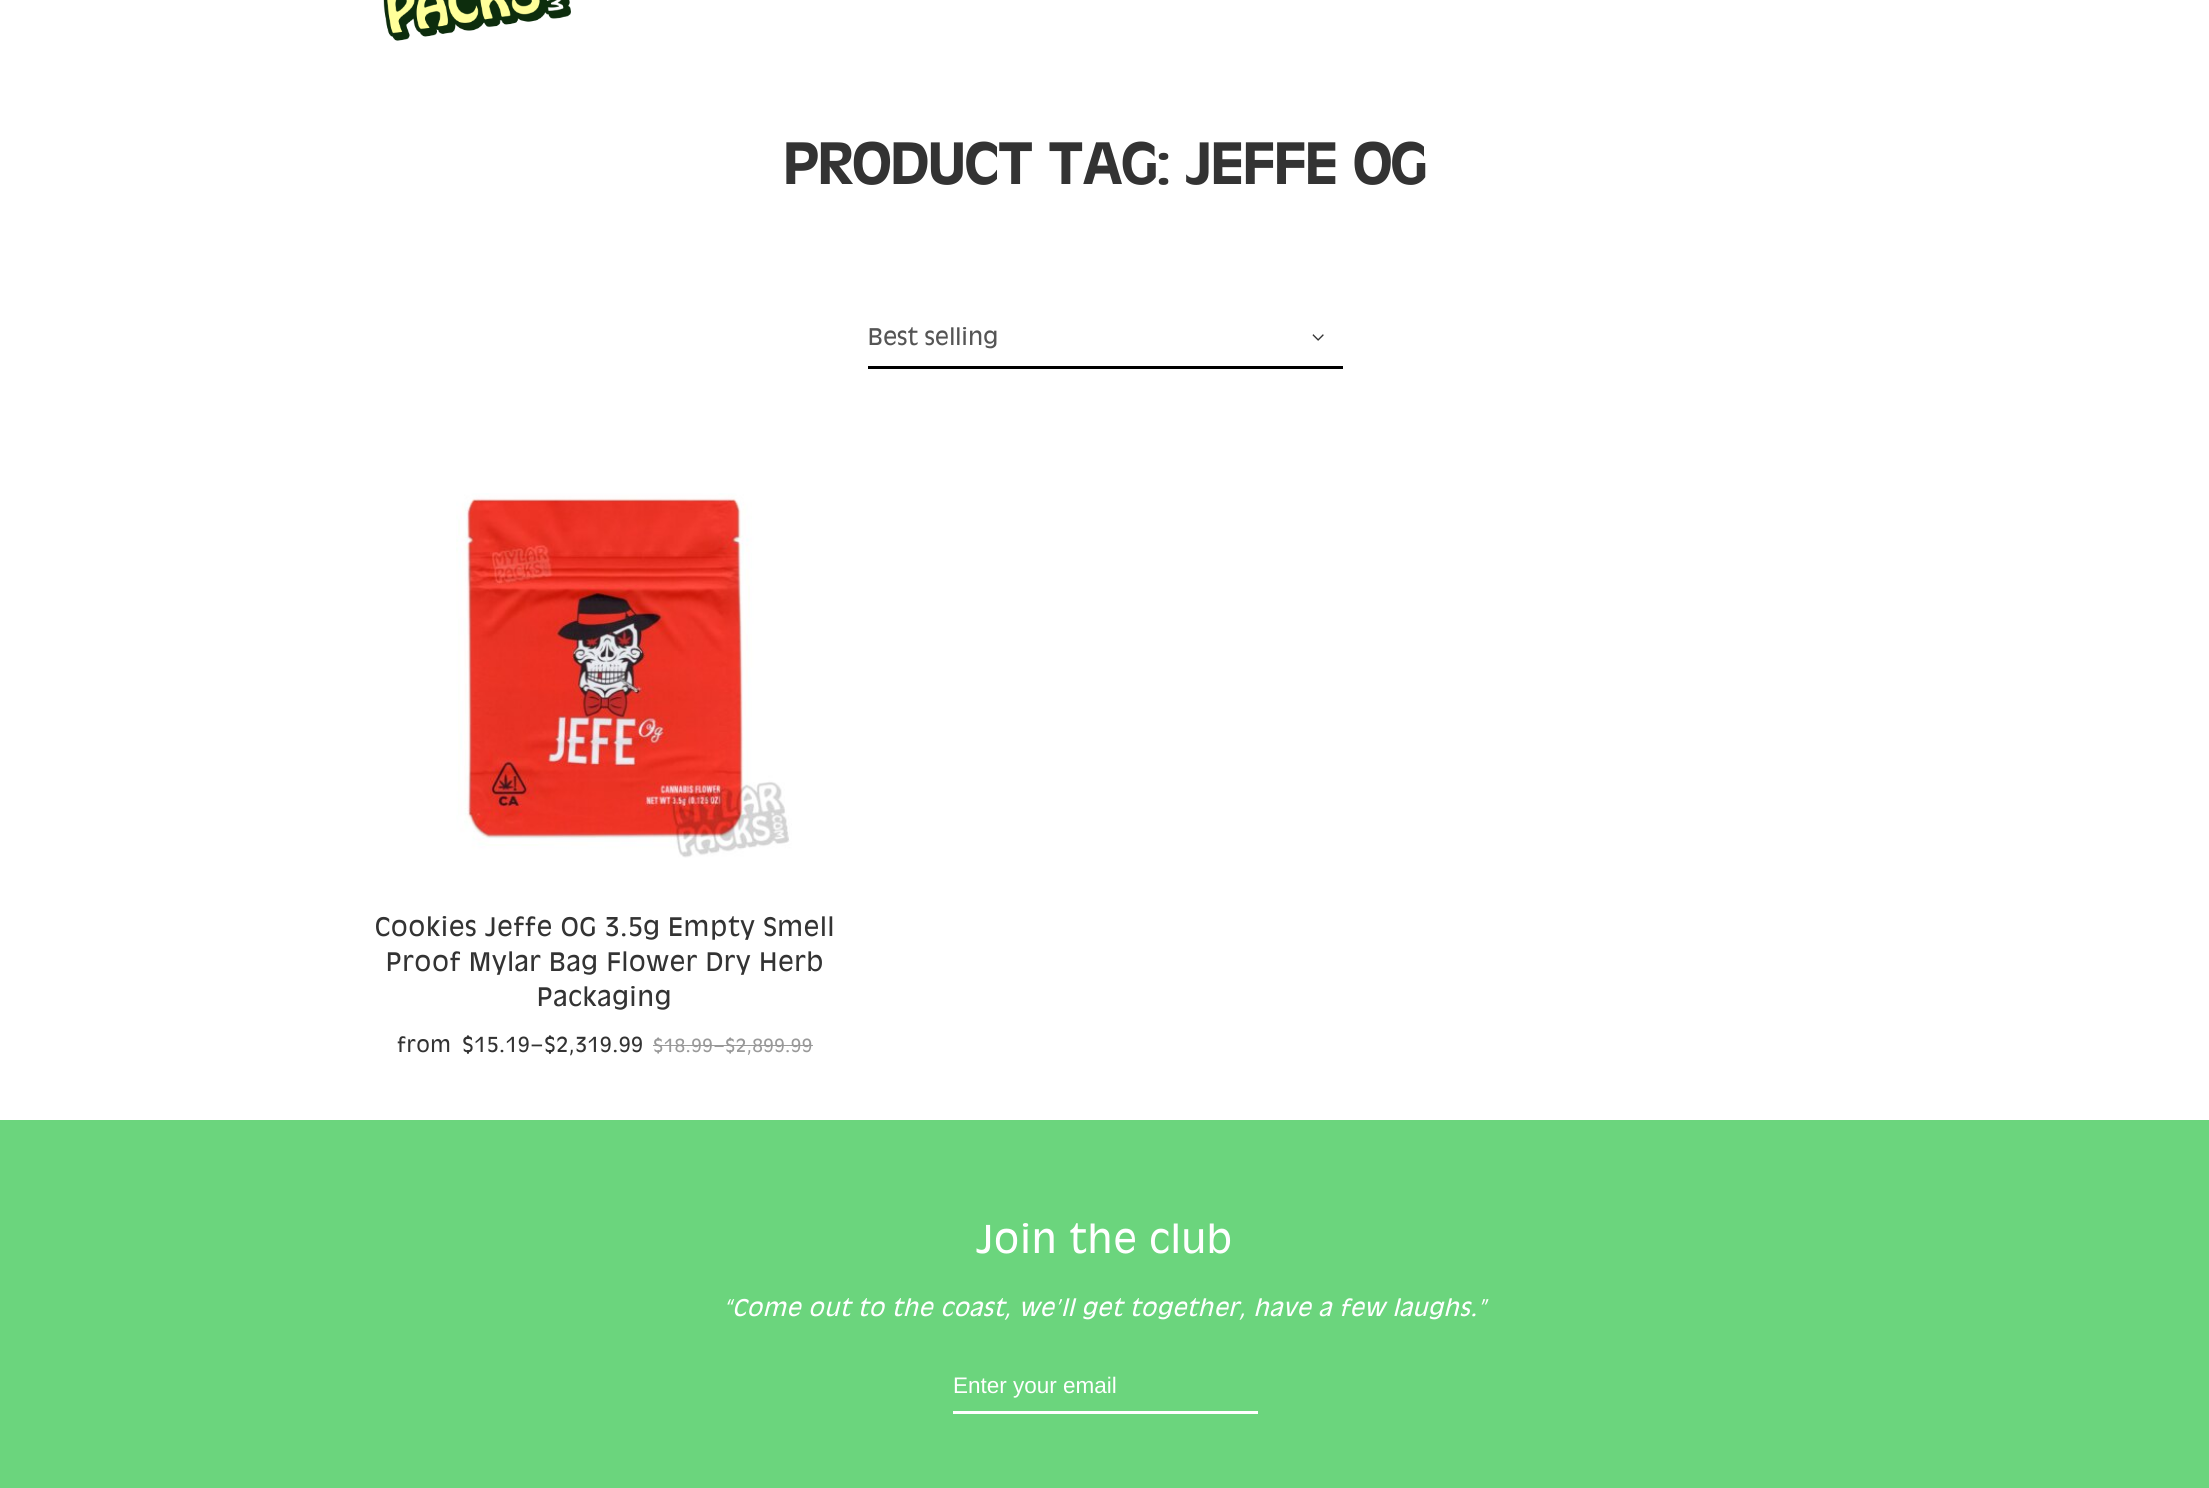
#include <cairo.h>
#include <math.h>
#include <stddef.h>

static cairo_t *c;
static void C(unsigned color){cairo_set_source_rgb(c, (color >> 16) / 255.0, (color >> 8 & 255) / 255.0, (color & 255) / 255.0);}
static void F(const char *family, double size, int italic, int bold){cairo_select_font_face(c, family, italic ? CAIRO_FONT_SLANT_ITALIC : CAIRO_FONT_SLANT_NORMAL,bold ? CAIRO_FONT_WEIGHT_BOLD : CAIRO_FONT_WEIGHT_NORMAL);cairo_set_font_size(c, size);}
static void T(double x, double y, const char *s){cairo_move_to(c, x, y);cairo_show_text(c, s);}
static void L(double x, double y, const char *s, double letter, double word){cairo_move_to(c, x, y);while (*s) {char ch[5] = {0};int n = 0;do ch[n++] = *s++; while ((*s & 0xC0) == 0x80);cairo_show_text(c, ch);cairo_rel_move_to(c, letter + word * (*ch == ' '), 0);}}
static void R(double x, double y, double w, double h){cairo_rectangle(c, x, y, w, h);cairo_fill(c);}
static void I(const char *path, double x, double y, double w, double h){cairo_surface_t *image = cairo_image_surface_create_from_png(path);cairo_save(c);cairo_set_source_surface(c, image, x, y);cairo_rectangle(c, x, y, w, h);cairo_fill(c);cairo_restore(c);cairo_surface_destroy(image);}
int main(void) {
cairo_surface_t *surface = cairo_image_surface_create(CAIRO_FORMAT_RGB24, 2209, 1488);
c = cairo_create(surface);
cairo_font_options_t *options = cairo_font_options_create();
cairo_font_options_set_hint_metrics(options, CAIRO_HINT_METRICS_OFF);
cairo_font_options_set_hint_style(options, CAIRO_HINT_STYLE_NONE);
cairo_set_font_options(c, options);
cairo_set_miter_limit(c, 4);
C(0xffffff);
cairo_paint(c);
I("1.png",383,0,188,41);
F("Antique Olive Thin",62.5,0,0);
C(0x333333);
L(783,184,"PRODUCT TAG: JEFFE OG",-1.6,0);
I("2.png",1312,334,12,7);
C(0x000000);
R(868,366,475,3);
F("Antique Olive",22.5,0,0);
C(0x555555);
T(868,345,"Best selling");
I("3.png",456,493,336,365);
F("Antique Olive",25,0,0);
C(0x333333);
L(375,936,"Cookies Jeffe OG 3.5g Empty Smell",.55,0);
L(386,971,"Proof Mylar Bag Flower Dry Herb",.55,0);
L(537,1006,"Packaging",.55,0);
F("Antique Olive",20,0,0);
L(397,1052,"from",.55,0);
L(462,1052,"$15.19",.55,0);
L(531,1052,"–",.55,0);
L(544,1052,"$2,319.99",.55,0);
F("Antique Olive",17.5,0,0);
C(0x999999);
L(653,1052,"$18.99",.55,0);
R(653,1045,61,1);
L(714,1052,"–",.55,0);
R(714,1045,11,1);
L(725,1052,"$2,899.99",.55,0);
R(725,1045,88,1);
C(0x6bd57d);
R(0,1120,2209,368);
F("Antique Olive",37.5,0,0);
C(0xffffff);
L(976,1253,"Join the club",.55,0);
F("Antique Olive",22.5,1,0);
L(723,1316,"“Come out to the coast, we’ll get together, have a few laughs.”",.55,0);
R(953,1411,305,3);
F("Liberation Sans",22.5,0,0);
T(953,1393,"Enter your email");
cairo_surface_write_to_png(surface, "o.png");
cairo_font_options_destroy(options);
cairo_destroy(c);
cairo_surface_destroy(surface);
return 0;
}
